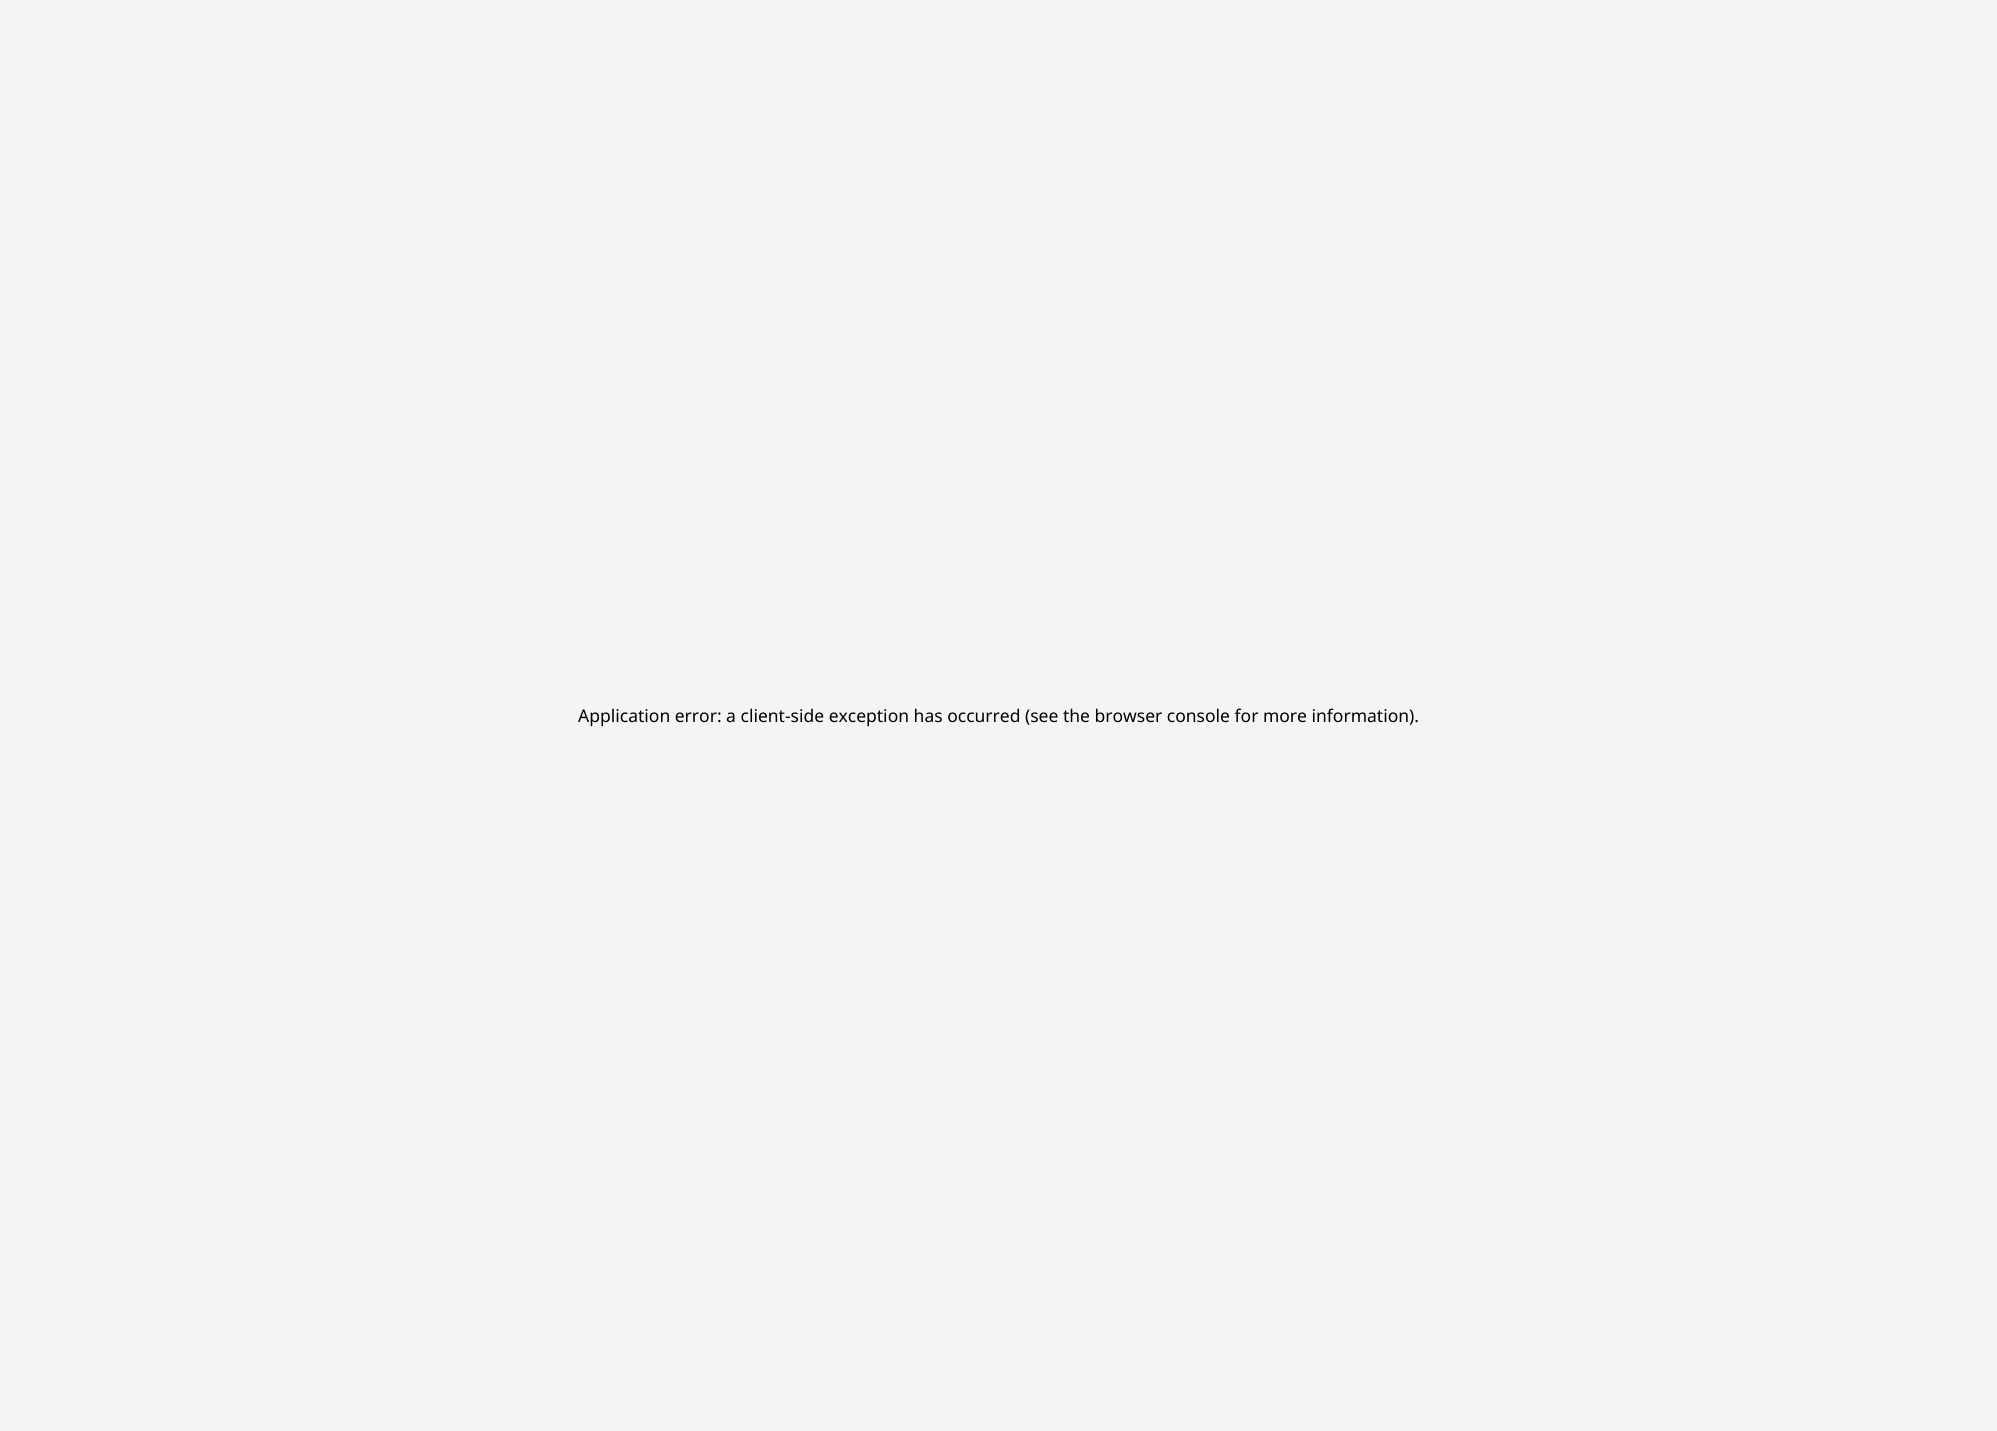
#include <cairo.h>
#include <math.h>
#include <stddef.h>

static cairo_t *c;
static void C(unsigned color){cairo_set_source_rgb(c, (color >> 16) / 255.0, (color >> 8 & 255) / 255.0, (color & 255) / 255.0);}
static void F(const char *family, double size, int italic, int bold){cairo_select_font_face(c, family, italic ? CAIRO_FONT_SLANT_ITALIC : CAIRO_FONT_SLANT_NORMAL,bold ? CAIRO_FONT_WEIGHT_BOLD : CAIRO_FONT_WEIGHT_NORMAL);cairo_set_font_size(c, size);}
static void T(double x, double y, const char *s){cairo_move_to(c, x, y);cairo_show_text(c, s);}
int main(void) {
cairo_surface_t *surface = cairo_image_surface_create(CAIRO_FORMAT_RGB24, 1997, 1431);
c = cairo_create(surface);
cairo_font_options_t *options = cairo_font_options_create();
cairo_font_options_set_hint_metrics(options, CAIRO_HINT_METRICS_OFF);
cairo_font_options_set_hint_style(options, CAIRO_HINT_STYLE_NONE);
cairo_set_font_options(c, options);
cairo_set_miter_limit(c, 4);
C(0xf3f4f6);
cairo_paint(c);
F("Noto Sans",17.5,0,0);
C(0x000000);
T(578,722,"Application error: a client-side exception has occurred (see the browser console for more information).");
cairo_surface_write_to_png(surface, "o.png");
cairo_font_options_destroy(options);
cairo_destroy(c);
cairo_surface_destroy(surface);
return 0;
}
